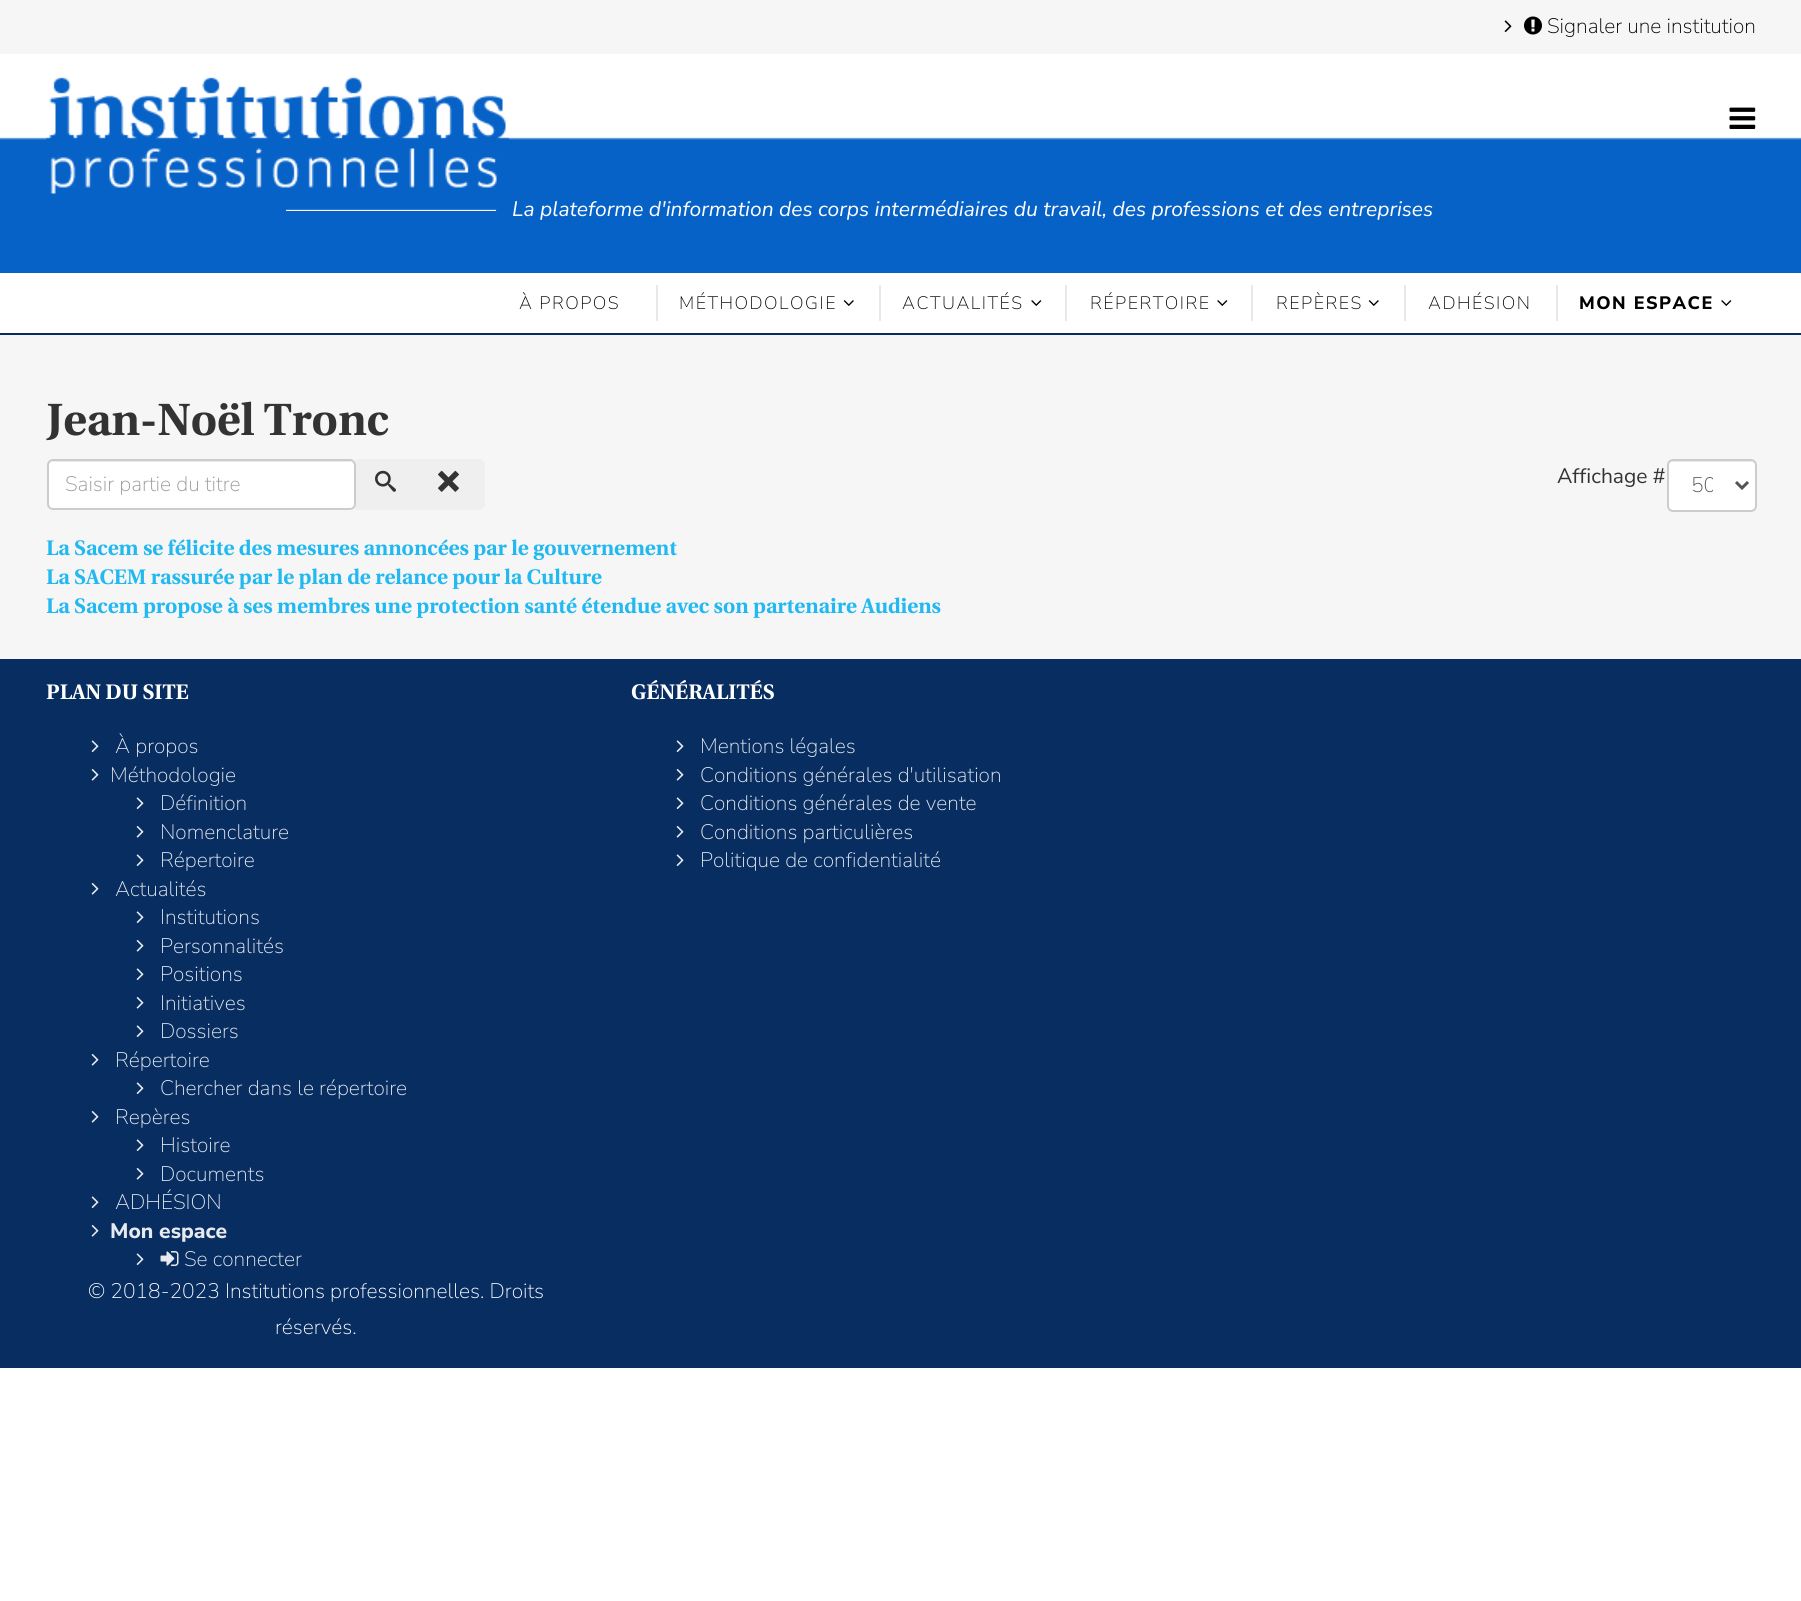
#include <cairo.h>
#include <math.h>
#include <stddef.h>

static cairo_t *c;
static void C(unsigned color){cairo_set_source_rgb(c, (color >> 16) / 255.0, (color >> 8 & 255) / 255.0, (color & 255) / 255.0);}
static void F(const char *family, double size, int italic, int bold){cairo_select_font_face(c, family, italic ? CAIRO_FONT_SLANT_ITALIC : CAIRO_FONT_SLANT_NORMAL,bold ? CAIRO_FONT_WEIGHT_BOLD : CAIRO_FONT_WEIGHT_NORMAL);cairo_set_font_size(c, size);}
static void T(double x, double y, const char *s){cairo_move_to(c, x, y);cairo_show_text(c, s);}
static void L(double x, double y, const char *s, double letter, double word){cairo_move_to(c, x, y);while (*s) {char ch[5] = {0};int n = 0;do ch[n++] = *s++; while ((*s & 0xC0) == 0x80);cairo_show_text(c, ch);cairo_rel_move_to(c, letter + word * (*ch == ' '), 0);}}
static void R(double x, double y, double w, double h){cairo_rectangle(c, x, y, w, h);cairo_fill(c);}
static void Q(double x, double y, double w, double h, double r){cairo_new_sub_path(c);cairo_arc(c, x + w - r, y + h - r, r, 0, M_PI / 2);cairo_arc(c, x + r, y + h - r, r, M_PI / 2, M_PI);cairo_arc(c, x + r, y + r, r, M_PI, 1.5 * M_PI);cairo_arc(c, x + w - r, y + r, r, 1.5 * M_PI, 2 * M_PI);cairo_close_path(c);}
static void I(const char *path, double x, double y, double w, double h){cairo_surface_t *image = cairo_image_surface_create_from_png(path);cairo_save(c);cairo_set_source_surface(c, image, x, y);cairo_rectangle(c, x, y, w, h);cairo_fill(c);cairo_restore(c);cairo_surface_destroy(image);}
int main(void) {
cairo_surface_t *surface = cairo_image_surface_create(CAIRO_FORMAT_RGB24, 1801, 1601);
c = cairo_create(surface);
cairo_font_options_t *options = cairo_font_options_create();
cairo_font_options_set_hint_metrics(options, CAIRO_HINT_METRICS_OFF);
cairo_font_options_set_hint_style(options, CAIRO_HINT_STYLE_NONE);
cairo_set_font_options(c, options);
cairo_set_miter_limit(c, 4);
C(0xffffff);
cairo_paint(c);
C(0xf6f6f6);
R(0,0,1801,54);
I("1.png",1504,20,8,12);
I("2.png",1524,16,18,19);
F("Nunito Sans ExtraLight",21,0,0);
C(0x000000);
T(1547,33,"Signaler une institution");
I("3.png",0,137,1801,61);
I("4.png",46,77,463,117);
I("5.png",1729,107,27,22);
C(0x0762c8);
R(0,198,1801,75);
F("Nunito Sans",21,1,0);
C(0xffffff);
T(286,216,"——————————");
T(512,216,"La plateforme d'information des corps intermédiaires du travail, des professions et des entreprises");
F("Nunito Sans ExtraLight",18,0,0);
C(0x000000);
L(519,309,"À PROPOS",1.5,0);
C(0xe8e8e8);
R(656,285,2,36);
C(0x000000);
L(679,309,"MÉTHODOLOGIE",1.5,0);
I("6.png",843,300,11,6);
C(0xe8e8e8);
R(879,285,2,36);
C(0x000000);
L(902,309,"ACTUALITÉS",1.5,0);
I("7.png",1031,300,11,6);
C(0xe8e8e8);
R(1065,285,2,36);
C(0x000000);
L(1090,309,"RÉPERTOIRE",1.5,0);
I("7.png",1217,300,11,6);
C(0xe8e8e8);
R(1251,285,2,36);
C(0x000000);
L(1276,309,"REPÈRES",1.5,0);
I("6.png",1368,300,11,6);
C(0xe8e8e8);
R(1404,285,2,36);
C(0x000000);
L(1428,309,"ADHÉSION",1.5,0);
C(0xe8e8e8);
R(1556,285,2,36);
F("Nunito Sans ExtraBold",18,0,0);
C(0x000000);
L(1579,309,"MON ESPACE",1.5,0);
I("7.png",1721,300,11,6);
C(0x082d61);
R(0,333,1801,2);
C(0xf6f6f6);
R(0,335,1801,324);
F("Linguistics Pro",45,0,1);
C(0x333333);
T(46,435,"Jean-Noël Tronc");
C(0xffffff);
Q(47,459,309,51,6);
cairo_fill(c);
C(0xececec);
cairo_new_path(c);
cairo_move_to(c,52,462);
cairo_line_to(c,350,462);
cairo_curve_to(c,352,462,354,464,354,466);
cairo_curve_to(c,354,463,352,461,349,461);
cairo_line_to(c,53,461);
cairo_curve_to(c,50,461,48,463,48,466);
cairo_curve_to(c,48,464,50,462,52,462);
cairo_close_path(c);
cairo_fill(c);
Q(48,460,307,49,5);
C(0xcccccc);
cairo_stroke(c);
F("Nunito Sans ExtraLight",21,0,0);
C(0x999999);
T(65,491,"Saisir partie du titre");
C(0xefefef);
R(356,459,63,51);
I("8.png",375,470,21,22);
cairo_new_path(c);
cairo_move_to(c,419,459);
cairo_line_to(c,479,459);
cairo_curve_to(c,482.5,459,485,461.5,485,465);
cairo_line_to(c,485,504);
cairo_curve_to(c,485,507.5,482.5,510,479,510);
cairo_line_to(c,419,510);
cairo_close_path(c);
cairo_fill(c);
I("9.png",438,470,21,22);
F("Nunito Sans",21,0,0);
C(0x333333);
T(1557,483,"Affichage #");
C(0xffffff);
Q(1667,459,90,53,6);
cairo_fill(c);
C(0xececec);
cairo_new_path(c);
cairo_move_to(c,1672,462);
cairo_line_to(c,1750,462);
cairo_curve_to(c,1753,462,1755,464,1755,466);
cairo_curve_to(c,1755,463,1753,461,1750,461);
cairo_line_to(c,1673,461);
cairo_curve_to(c,1670,461,1668,463,1668,466);
cairo_curve_to(c,1668,464,1670,462,1672,462);
cairo_close_path(c);
cairo_fill(c);
Q(1668,460,88,51,5);
C(0xcccccc);
cairo_stroke(c);
cairo_new_path(c);
cairo_move_to(c,1736,482);
cairo_line_to(c,1742,488);
cairo_line_to(c,1748,482);
C(0x555555);
cairo_set_line_width(c,3);
cairo_stroke(c);
cairo_save(c);
cairo_rectangle(c,1692,470,21,31);
cairo_clip(c);
F("Nunito Sans ExtraLight",21,0,0);
T(1691,492,"50");
cairo_restore(c);
F("Linguistics Pro",21,0,1);
C(0x22b8f0);
T(46,555,"La Sacem se félicite des mesures annoncées par le gouvernement");
T(46,584,"La SACEM rassurée par le plan de relance pour la Culture");
T(46,613,"La Sacem propose à ses membres une protection santé étendue avec son partenaire Audiens");
C(0x082d61);
R(0,659,1801,709);
C(0xffffff);
T(46,699,"PLAN DU SITE");
I("10.png",91,740,8,12);
F("Nunito Sans ExtraLight",21,0,0);
C(0xe6eaef);
T(115,753,"À propos");
I("11.png",91,769,8,12);
T(110,782,"Méthodologie");
I("10.png",136,797,8,12);
T(160,810,"Définition");
I("11.png",136,826,8,12);
T(160,839,"Nomenclature");
I("10.png",136,854,8,12);
T(160,867,"Répertoire");
I("11.png",91,883,8,12);
T(115,896,"Actualités");
I("10.png",136,911,8,12);
T(160,924,"Institutions");
I("11.png",136,940,8,12);
T(160,953,"Personnalités");
I("10.png",136,968,8,12);
T(160,981,"Positions");
I("11.png",136,997,8,12);
T(160,1010,"Initiatives");
I("10.png",136,1025,8,12);
T(160,1038,"Dossiers");
I("11.png",91,1054,8,12);
T(115,1067,"Répertoire");
I("10.png",136,1082,8,12);
T(160,1095,"Chercher dans le répertoire");
I("11.png",91,1111,8,12);
T(115,1124,"Repères");
I("10.png",136,1139,8,12);
T(160,1152,"Histoire");
I("11.png",136,1168,8,12);
T(160,1181,"Documents");
I("10.png",91,1196,8,12);
T(115,1209,"ADHÉSION");
I("11.png",91,1225,8,12);
F("Nunito Sans ExtraBold",21,0,0);
T(110,1238,"Mon espace");
I("10.png",136,1253,8,12);
I("12.png",160,1251,19,15);
F("Nunito Sans ExtraLight",21,0,0);
T(184,1266,"Se connecter");
C(0xffffff);
T(88,1298,"© 2018-2023 Institutions professionnelles. Droits");
T(275,1334,"réservés.");
F("Linguistics Pro",21,0,1);
T(631,699,"GÉNÉRALITÉS");
I("10.png",676,740,8,12);
F("Nunito Sans ExtraLight",21,0,0);
C(0xe6eaef);
T(700,753,"Mentions légales");
I("11.png",676,769,8,12);
T(700,782,"Conditions générales d'utilisation");
I("10.png",676,797,8,12);
T(700,810,"Conditions générales de vente");
I("11.png",676,826,8,12);
T(700,839,"Conditions particulières");
I("10.png",676,854,8,12);
T(700,867,"Politique de confidentialité");
cairo_surface_write_to_png(surface, "o.png");
cairo_font_options_destroy(options);
cairo_destroy(c);
cairo_surface_destroy(surface);
return 0;
}
